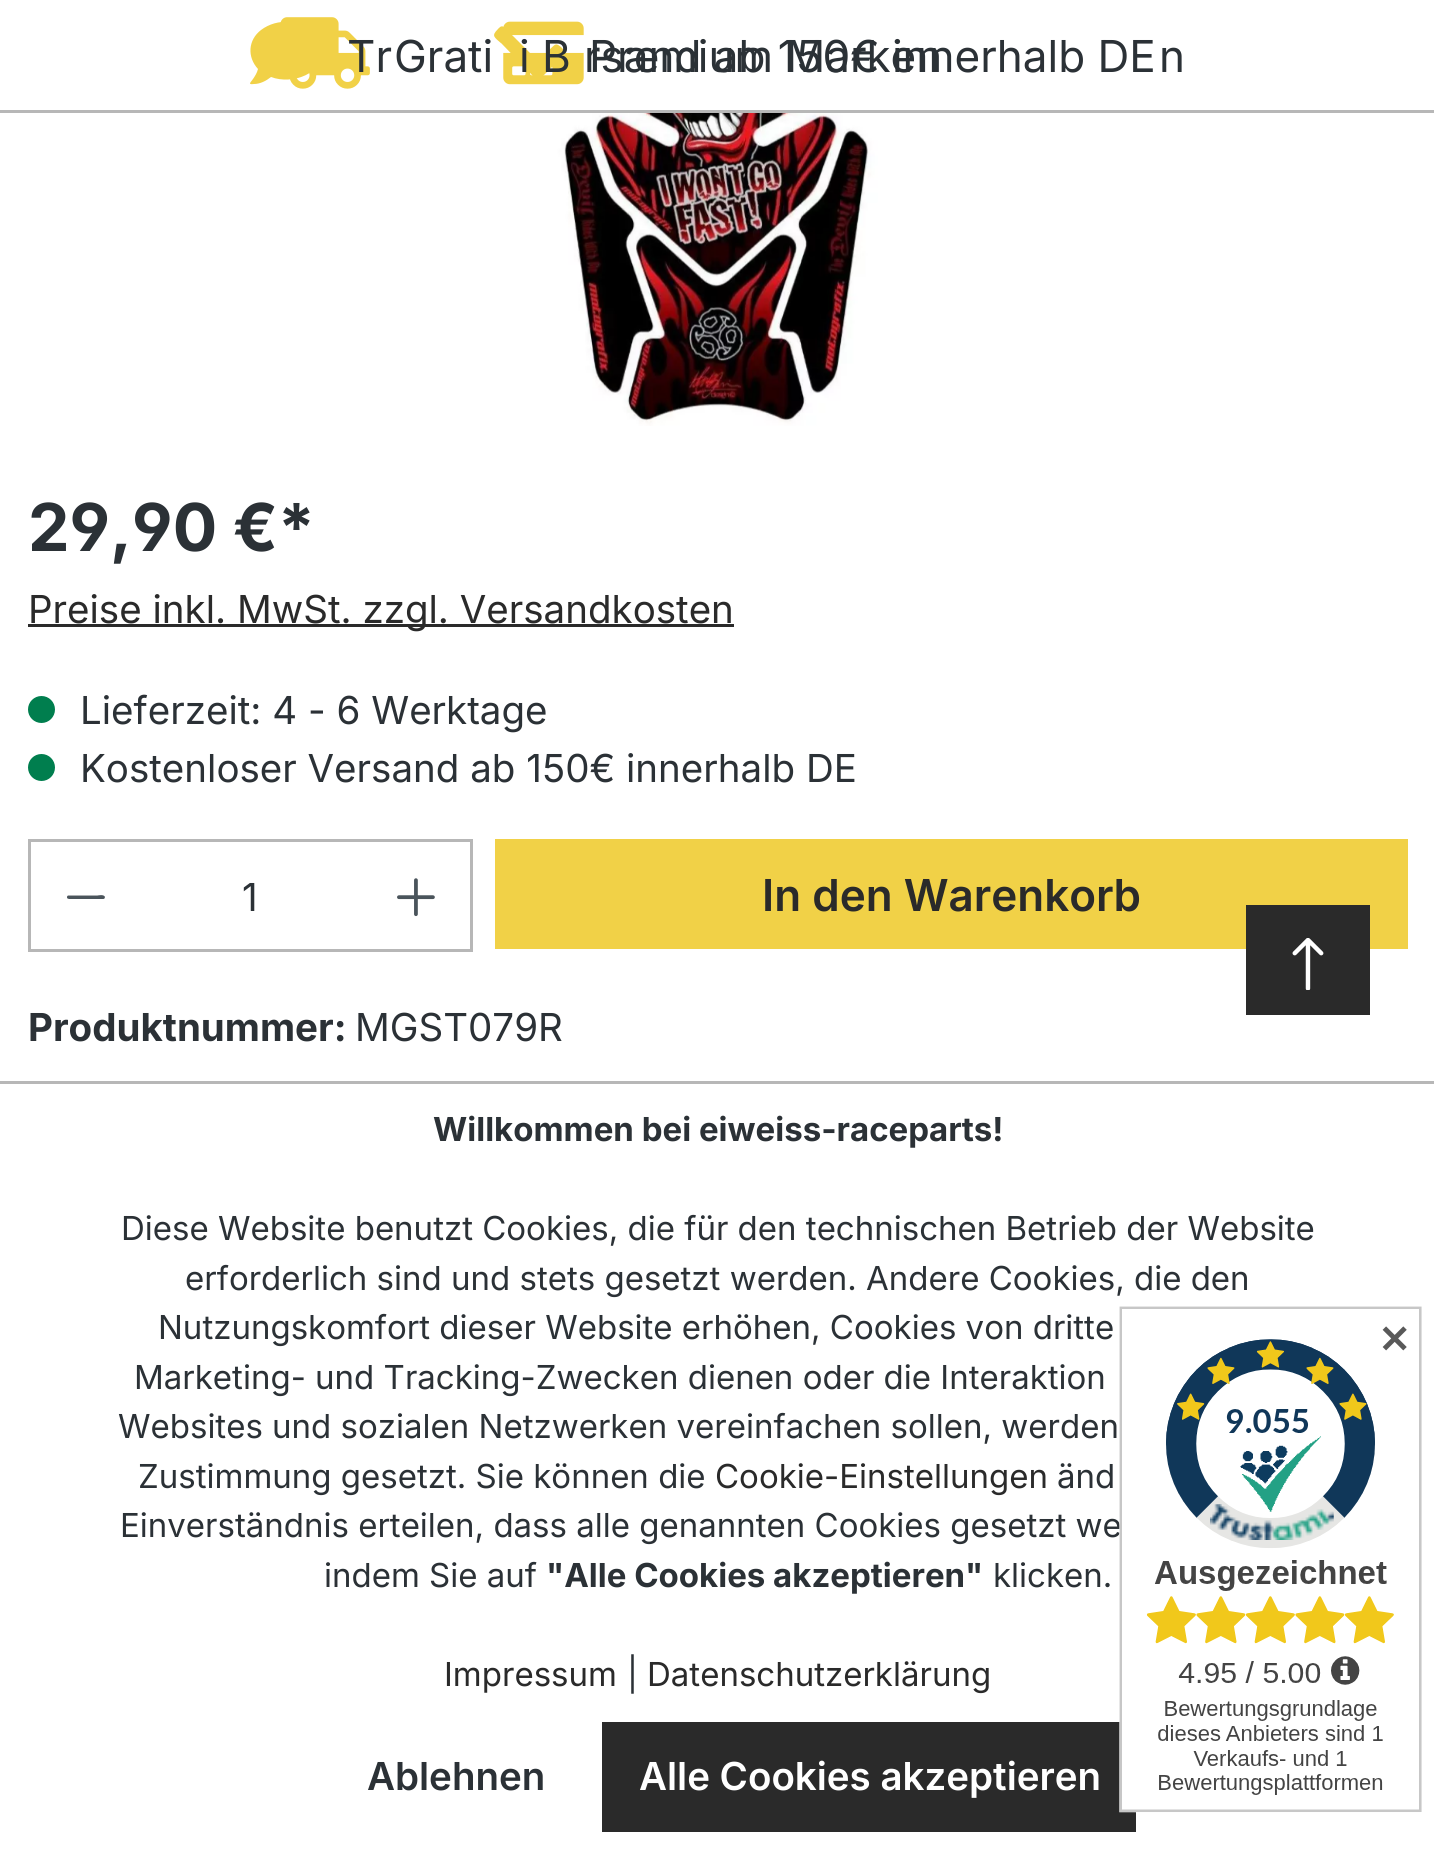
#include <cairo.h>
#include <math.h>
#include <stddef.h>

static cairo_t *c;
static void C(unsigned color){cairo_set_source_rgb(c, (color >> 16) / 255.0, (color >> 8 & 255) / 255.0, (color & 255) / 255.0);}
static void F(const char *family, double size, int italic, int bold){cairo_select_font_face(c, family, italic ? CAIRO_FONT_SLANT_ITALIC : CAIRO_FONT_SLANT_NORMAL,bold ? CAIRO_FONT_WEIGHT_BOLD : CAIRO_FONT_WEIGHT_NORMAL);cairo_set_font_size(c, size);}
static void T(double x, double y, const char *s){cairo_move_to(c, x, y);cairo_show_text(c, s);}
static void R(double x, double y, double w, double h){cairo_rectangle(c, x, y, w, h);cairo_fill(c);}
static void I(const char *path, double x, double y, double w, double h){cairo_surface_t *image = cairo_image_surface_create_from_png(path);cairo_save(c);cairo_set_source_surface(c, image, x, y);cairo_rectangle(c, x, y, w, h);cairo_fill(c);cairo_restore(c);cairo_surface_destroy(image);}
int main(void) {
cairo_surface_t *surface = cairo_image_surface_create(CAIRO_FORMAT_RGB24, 1434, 1853);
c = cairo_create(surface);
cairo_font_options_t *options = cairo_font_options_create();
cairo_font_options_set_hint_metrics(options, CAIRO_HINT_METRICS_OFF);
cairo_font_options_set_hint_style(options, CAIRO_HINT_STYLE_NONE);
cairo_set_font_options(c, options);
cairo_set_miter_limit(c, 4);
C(0xffffff);
cairo_paint(c);
C(0xb7b7b7);
R(0,110,1434,3);
C(0xf1d147);
cairo_new_path(c);
cairo_move_to(c,541,78);
cairo_line_to(c,556,63);
cairo_curve_to(c,565,55,569,55,561,47);
cairo_curve_to(c,555,42,555,45,549,50);
cairo_line_to(c,538,61);
cairo_line_to(c,504,27);
cairo_curve_to(c,501,25,499,28,498,29);
cairo_curve_to(c,491,36,494,37,502,44);
cairo_line_to(c,529,72);
cairo_curve_to(c,530,72,535,80,539,80);
cairo_close_path(c);
cairo_fill(c);
I("1.png",503,21,81,64);
I("2.png",280,17,90,72);
cairo_new_path(c);
cairo_move_to(c,261,30);
cairo_curve_to(c,269,24,279,21,290,22);
cairo_curve_to(c,298,22,305,25,311,30);
cairo_curve_to(c,317,35,321,41,322,48);
cairo_curve_to(c,325,74,292,85,271,77);
cairo_curve_to(c,266,81,260,84,254,84);
cairo_curve_to(c,247,85,251,82,253,79);
cairo_curve_to(c,255,76,257,73,258,69);
cairo_curve_to(c,247,57,248,40,261,30);
cairo_close_path(c);
cairo_fill(c);
F("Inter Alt",44,0,0);
C(0x2b3136);
T(347,72,"Tr");
T(519,72,"i B");
T(1159,72,"n");
F("Inter",44,0,0);
T(394,72,"Grati");
T(584,72,"rsand ab 150€ innerhalb DE");
T(589,72,"Premium Marken");
I("3.png",547,113,341,313);
F("Inter Alt",66,0,1);
T(28,551,"29,90 €*");
C(0x2a2a2a);
R(28,624,706,3);
F("Inter",38.5,0,0);
T(28,623,"Preise inkl. MwSt. zzgl. Versandkosten");
C(0x007e4e);
cairo_new_path(c);
cairo_arc(c,41.5,709.5,13.5,0,2 * M_PI);
cairo_fill(c);
C(0x2b3136);
T(80,724,"Lieferzeit: 4 - 6 Werktage");
C(0x007e4e);
cairo_new_path(c);
cairo_arc(c,41.5,767.5,13.5,0,2 * M_PI);
cairo_fill(c);
C(0x2b3136);
T(80,782,"Kostenloser Versand ab 150€ innerhalb DE");
C(0xb7b7b7);
R(28,839,445,3);
R(28,949,335,3);
R(28,839,3,113);
C(0x4a545b);
cairo_set_fill_rule(c,CAIRO_FILL_RULE_EVEN_ODD);
cairo_new_path(c);
cairo_move_to(c,69,899);
cairo_line_to(c,103.5,899);
cairo_line_to(c,104.5,898.5);
cairo_curve_to(c,104.5,898,105,897.5,105,897);
cairo_curve_to(c,104,894,98,895.5,97.5,895.5);
cairo_line_to(c,68,895.5);
cairo_curve_to(c,67,896,66.5,897.5,67.5,898.5);
cairo_close_path(c);
cairo_fill(c);
C(0x2b3136);
T(242,911,"1");
C(0xb7b7b7);
R(470,839,3,113);
R(360,949,113,3);
I("4.png",397,878,38,39);
C(0xf1d147);
R(495,839,913,110);
F("Inter SemiBold",44,0,0);
C(0x2a2a2a);
T(762,911,"In den Warenkorb");
F("Inter",38.5,0,1);
C(0x2b3136);
T(28,1041,"Produktnummer:");
F("Inter",38.5,0,0);
T(355,1041,"MGST079R");
C(0x2a2a2a);
R(1246,905,124,110);
I("5.png",1292,938,32,52);
C(0xb7b7b7);
R(0,1081,1434,3);
F("Inter",33,0,1);
C(0x2b3136);
T(433,1141,"Willkommen bei eiweiss-raceparts!");
F("Inter",33,0,0);
T(121,1240,"Diese Website benutzt Cookies, die für den technischen Betrieb der Website");
T(185,1290,"erforderlich sind und stets gesetzt werden. Andere Cookies, die den");
T(158,1339,"Nutzungskomfort dieser Website erhöhen, Cookies von dritte");
T(134,1389,"Marketing- und Tracking-Zwecken dienen oder die Interaktion");
T(118,1438,"Websites und sozialen Netzwerken vereinfachen sollen, werden");
T(138,1488,"Zustimmung gesetzt. Sie können die");
C(0x2a2a2a);
T(715,1488,"Cookie-Einstellungen");
C(0x2b3136);
T(1057,1488,"änd");
T(120,1537,"Einverständnis erteilen, dass alle genannten Cookies gesetzt we");
T(324,1587,"indem Sie auf");
F("Inter",33,0,1);
T(546,1587,"\"Alle Cookies akzeptieren\"");
F("Inter",33,0,0);
T(993,1587,"klicken.");
C(0x2a2a2a);
T(444,1686,"Impressum");
C(0x2b3136);
T(627,1686,"|");
C(0x2a2a2a);
T(647,1686,"Datenschutzerklärung");
F("Inter SemiBold",38.5,0,0);
C(0x2b3136);
T(367,1790,"Ablehnen");
C(0x2a2a2a);
R(602,1722,534,110);
C(0xffffff);
T(639,1790,"Alle Cookies akzeptieren");
I("6.png",1119,1306,303,507);
F("DejaVu Sans",38.5,0,1);
C(0x595959);
T(1378,1353,"✕");
cairo_surface_write_to_png(surface, "o.png");
cairo_font_options_destroy(options);
cairo_destroy(c);
cairo_surface_destroy(surface);
return 0;
}
